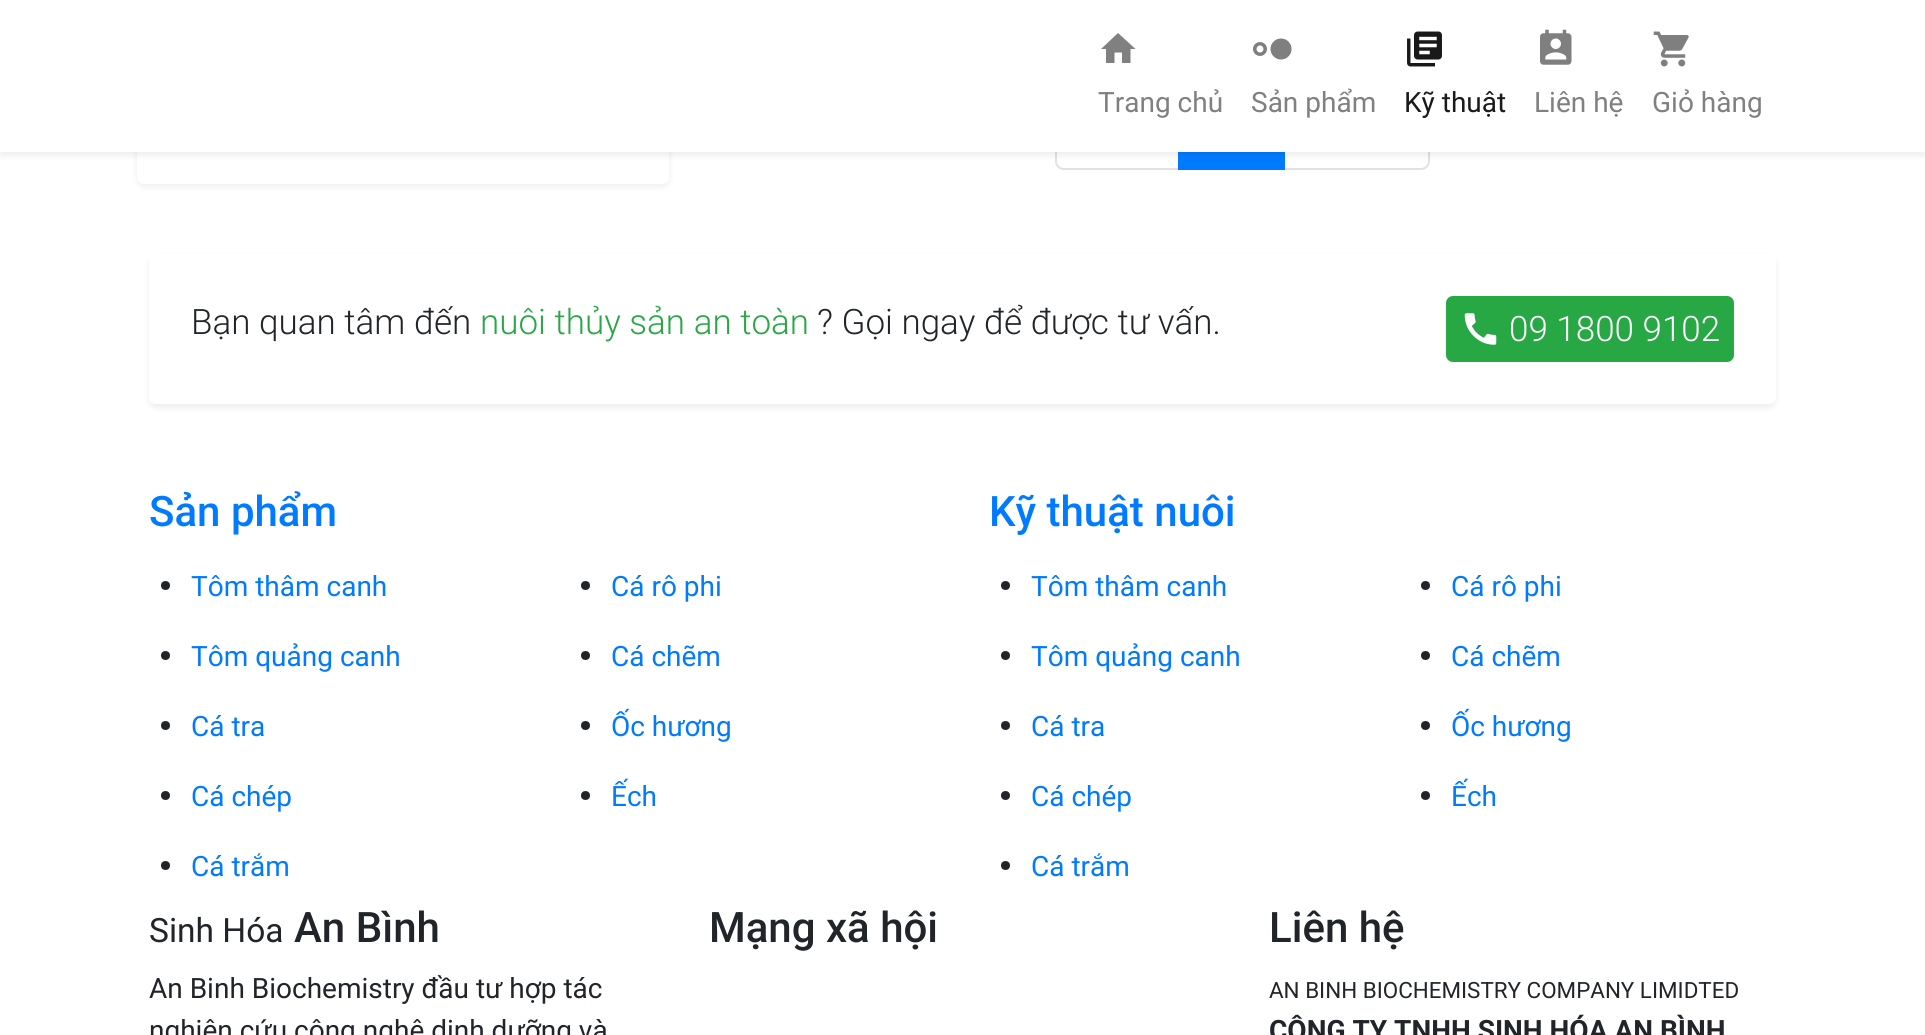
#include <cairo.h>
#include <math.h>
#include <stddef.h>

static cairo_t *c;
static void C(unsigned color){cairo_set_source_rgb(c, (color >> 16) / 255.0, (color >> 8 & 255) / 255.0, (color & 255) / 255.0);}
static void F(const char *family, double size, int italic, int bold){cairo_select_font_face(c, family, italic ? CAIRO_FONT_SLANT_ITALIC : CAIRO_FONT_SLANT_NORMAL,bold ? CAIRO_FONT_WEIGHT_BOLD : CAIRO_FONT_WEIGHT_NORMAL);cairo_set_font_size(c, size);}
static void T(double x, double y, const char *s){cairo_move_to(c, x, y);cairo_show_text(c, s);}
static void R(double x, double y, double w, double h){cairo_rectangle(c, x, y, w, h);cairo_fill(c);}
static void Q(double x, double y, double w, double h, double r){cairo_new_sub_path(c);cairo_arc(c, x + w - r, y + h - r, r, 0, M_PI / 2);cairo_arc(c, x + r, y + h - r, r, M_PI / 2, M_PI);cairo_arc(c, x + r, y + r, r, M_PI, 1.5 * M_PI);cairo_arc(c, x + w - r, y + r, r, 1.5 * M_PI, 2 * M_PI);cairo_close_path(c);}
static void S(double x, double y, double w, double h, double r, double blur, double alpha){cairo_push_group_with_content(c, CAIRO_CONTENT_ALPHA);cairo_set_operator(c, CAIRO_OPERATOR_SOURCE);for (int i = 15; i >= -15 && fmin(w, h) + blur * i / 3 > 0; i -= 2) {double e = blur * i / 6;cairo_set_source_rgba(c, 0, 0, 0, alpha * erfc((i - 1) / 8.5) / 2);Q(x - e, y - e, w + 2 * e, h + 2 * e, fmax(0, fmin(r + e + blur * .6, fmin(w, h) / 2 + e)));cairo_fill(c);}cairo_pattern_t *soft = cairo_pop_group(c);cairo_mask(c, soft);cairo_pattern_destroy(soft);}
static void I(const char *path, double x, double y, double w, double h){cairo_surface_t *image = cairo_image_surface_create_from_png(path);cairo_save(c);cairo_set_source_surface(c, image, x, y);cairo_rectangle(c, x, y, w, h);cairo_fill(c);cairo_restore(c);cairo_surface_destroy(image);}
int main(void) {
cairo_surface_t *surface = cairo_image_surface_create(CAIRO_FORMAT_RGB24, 1925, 1035);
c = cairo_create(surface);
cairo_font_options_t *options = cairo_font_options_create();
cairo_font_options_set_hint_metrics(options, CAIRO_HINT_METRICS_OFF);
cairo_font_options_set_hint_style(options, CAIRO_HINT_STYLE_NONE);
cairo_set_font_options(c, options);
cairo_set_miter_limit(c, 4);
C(0xffffff);
cairo_paint(c);
C(0x000000);
S(137,-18,532,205,7,3.5,.07);
C(0xffffff);
Q(137,-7,532,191,7);
cairo_fill(c);
cairo_new_path(c);
cairo_move_to(c,1064,73);
cairo_line_to(c,1179,73);
cairo_line_to(c,1179,169);
cairo_line_to(c,1064,169);
cairo_curve_to(c,1059.5,169,1056,165.5,1056,161);
cairo_line_to(c,1056,81);
cairo_curve_to(c,1056,76.5,1059.5,73,1064,73);
cairo_close_path(c);
C(0xdee2e6);
cairo_stroke(c);
cairo_new_path(c);
cairo_move_to(c,1284,73);
cairo_line_to(c,1421,73);
cairo_curve_to(c,1425.5,73,1429,76.5,1429,81);
cairo_line_to(c,1429,161);
cairo_curve_to(c,1429,165.5,1425.5,169,1421,169);
cairo_line_to(c,1284,169);
cairo_close_path(c);
cairo_stroke(c);
C(0x007bff);
R(1178,152,107,18);
C(0x000000);
S(0,4,1925,152,0,3.5,.07);
C(0xffffff);
R(0,0,1925,152);
C(0x808080);
cairo_new_path(c);
cairo_move_to(c,1114.5,63);
cairo_line_to(c,1106,63);
cairo_line_to(c,1106,49);
cairo_line_to(c,1101,49);
cairo_line_to(c,1118,33);
cairo_line_to(c,1135.5,49);
cairo_line_to(c,1130.5,49);
cairo_line_to(c,1130.5,63);
cairo_line_to(c,1122,63);
cairo_line_to(c,1122,52.5);
cairo_line_to(c,1114.5,52.5);
cairo_close_path(c);
cairo_fill(c);
F("Roboto",28,0,0);
T(1098,112,"Trang chủ");
I("1.png",1253,38,39,22);
T(1251,112,"Sản phẩm");
I("2.png",1407,31,35,36);
C(0x1a1a1a);
T(1404,112,"Kỹ thuật");
I("3.png",1540,29,32,36);
C(0x808080);
T(1534,112,"Liên hệ");
I("4.png",1653,31,36,36);
T(1652,112,"Giỏ hàng");
cairo_save(c);
cairo_set_fill_rule(c,CAIRO_FILL_RULE_EVEN_ODD);
cairo_new_path(c);
cairo_move_to(c,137,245);
cairo_line_to(c,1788,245);
cairo_line_to(c,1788,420);
cairo_line_to(c,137,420);
cairo_close_path(c);
cairo_move_to(c,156,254);
cairo_line_to(c,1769,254);
cairo_curve_to(c,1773,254,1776,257,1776,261);
cairo_line_to(c,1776,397);
cairo_curve_to(c,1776,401,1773,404,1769,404);
cairo_line_to(c,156,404);
cairo_curve_to(c,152,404,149,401,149,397);
cairo_line_to(c,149,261);
cairo_curve_to(c,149,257,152,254,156,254);
cairo_close_path(c);
cairo_clip(c);
C(0x000000);
S(149,257,1627,151,7,3.5,.07);
cairo_restore(c);
F("Roboto Light",35,0,0);
C(0x212529);
T(191,334,"Bạn quan tâm đến");
C(0x28a745);
T(480,334,"nuôi thủy sản an toàn");
C(0x212529);
T(817,334,"? Gọi ngay để được tư vấn.");
C(0x28a745);
Q(1446,296,288,66,7);
cairo_fill(c);
I("5.png",1464,313,33,32);
C(0xffffff);
T(1509,341,"09 1800 9102");
F("Roboto Medium",42,0,0);
C(0x007bff);
T(149,526,"Sản phẩm");
C(0x212529);
cairo_new_path(c);
cairo_arc(c,165.5,585.5,4.5,0,2 * M_PI);
cairo_fill(c);
F("Roboto",28,0,0);
C(0x007bff);
T(191,596,"Tôm thâm canh");
C(0x212529);
cairo_new_path(c);
cairo_arc(c,165.5,655.5,4.5,0,2 * M_PI);
cairo_fill(c);
C(0x007bff);
T(191,666,"Tôm quảng canh");
C(0x212529);
cairo_new_path(c);
cairo_arc(c,165.5,725.5,4.5,0,2 * M_PI);
cairo_fill(c);
C(0x007bff);
T(191,736,"Cá tra");
C(0x212529);
cairo_new_path(c);
cairo_arc(c,165.5,795.5,4.5,0,2 * M_PI);
cairo_fill(c);
C(0x007bff);
T(191,806,"Cá chép");
C(0x212529);
cairo_new_path(c);
cairo_arc(c,165.5,865.5,4.5,0,2 * M_PI);
cairo_fill(c);
C(0x007bff);
T(191,876,"Cá trắm");
C(0x212529);
cairo_new_path(c);
cairo_arc(c,585.5,585.5,4.5,0,2 * M_PI);
cairo_fill(c);
C(0x007bff);
T(611,596,"Cá rô phi");
C(0x212529);
cairo_new_path(c);
cairo_arc(c,585.5,655.5,4.5,0,2 * M_PI);
cairo_fill(c);
C(0x007bff);
T(611,666,"Cá chẽm");
C(0x212529);
cairo_new_path(c);
cairo_arc(c,585.5,725.5,4.5,0,2 * M_PI);
cairo_fill(c);
C(0x007bff);
T(611,736,"Ốc hương");
C(0x212529);
cairo_new_path(c);
cairo_arc(c,585.5,795.5,4.5,0,2 * M_PI);
cairo_fill(c);
C(0x007bff);
T(611,806,"Ếch");
F("Roboto Medium",42,0,0);
T(989,526,"Kỹ thuật nuôi");
C(0x212529);
cairo_new_path(c);
cairo_arc(c,1005.5,585.5,4.5,0,2 * M_PI);
cairo_fill(c);
F("Roboto",28,0,0);
C(0x007bff);
T(1031,596,"Tôm thâm canh");
C(0x212529);
cairo_new_path(c);
cairo_arc(c,1005.5,655.5,4.5,0,2 * M_PI);
cairo_fill(c);
C(0x007bff);
T(1031,666,"Tôm quảng canh");
C(0x212529);
cairo_new_path(c);
cairo_arc(c,1005.5,725.5,4.5,0,2 * M_PI);
cairo_fill(c);
C(0x007bff);
T(1031,736,"Cá tra");
C(0x212529);
cairo_new_path(c);
cairo_arc(c,1005.5,795.5,4.5,0,2 * M_PI);
cairo_fill(c);
C(0x007bff);
T(1031,806,"Cá chép");
C(0x212529);
cairo_new_path(c);
cairo_arc(c,1005.5,865.5,4.5,0,2 * M_PI);
cairo_fill(c);
C(0x007bff);
T(1031,876,"Cá trắm");
C(0x212529);
cairo_new_path(c);
cairo_arc(c,1425.5,585.5,4.5,0,2 * M_PI);
cairo_fill(c);
C(0x007bff);
T(1451,596,"Cá rô phi");
C(0x212529);
cairo_new_path(c);
cairo_arc(c,1425.5,655.5,4.5,0,2 * M_PI);
cairo_fill(c);
C(0x007bff);
T(1451,666,"Cá chẽm");
C(0x212529);
cairo_new_path(c);
cairo_arc(c,1425.5,725.5,4.5,0,2 * M_PI);
cairo_fill(c);
C(0x007bff);
T(1451,736,"Ốc hương");
C(0x212529);
cairo_new_path(c);
cairo_arc(c,1425.5,795.5,4.5,0,2 * M_PI);
cairo_fill(c);
C(0x007bff);
T(1451,806,"Ếch");
F("Roboto",33.5,0,0);
C(0x212529);
T(149,942,"Sinh Hóa");
F("Roboto Medium",42,0,0);
T(294,942,"An Bình");
F("Roboto",28,0,0);
T(149,998,"An Binh Biochemistry đầu tư hợp tác");
T(149,1040,"nghiên cứu công nghệ dinh dưỡng và");
F("Roboto Medium",42,0,0);
T(709,942,"Mạng xã hội");
T(1269,942,"Liên hệ");
F("Roboto",22.4,0,0);
T(1269,998,"AN BINH BIOCHEMISTRY COMPANY LIMIDTED");
F("Roboto",28,0,1);
T(1269,1040,"CÔNG TY TNHH SINH HÓA AN BÌNH");
cairo_surface_write_to_png(surface, "o.png");
cairo_font_options_destroy(options);
cairo_destroy(c);
cairo_surface_destroy(surface);
return 0;
}
